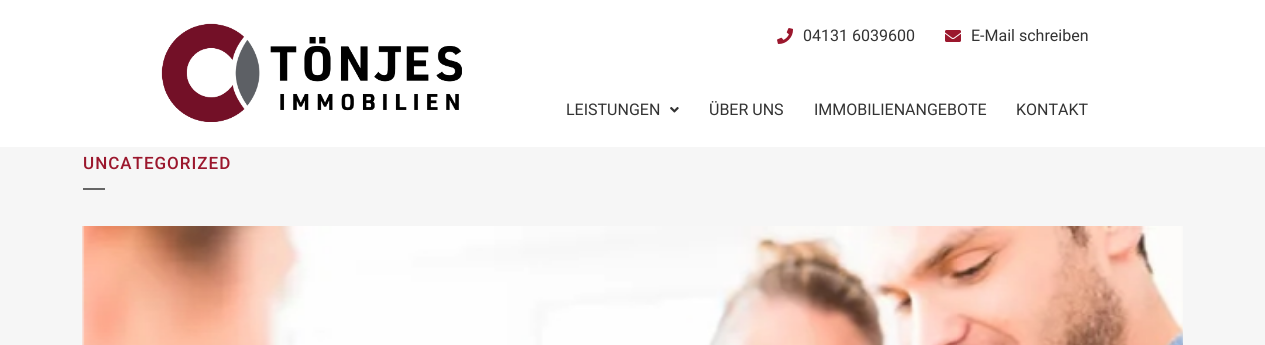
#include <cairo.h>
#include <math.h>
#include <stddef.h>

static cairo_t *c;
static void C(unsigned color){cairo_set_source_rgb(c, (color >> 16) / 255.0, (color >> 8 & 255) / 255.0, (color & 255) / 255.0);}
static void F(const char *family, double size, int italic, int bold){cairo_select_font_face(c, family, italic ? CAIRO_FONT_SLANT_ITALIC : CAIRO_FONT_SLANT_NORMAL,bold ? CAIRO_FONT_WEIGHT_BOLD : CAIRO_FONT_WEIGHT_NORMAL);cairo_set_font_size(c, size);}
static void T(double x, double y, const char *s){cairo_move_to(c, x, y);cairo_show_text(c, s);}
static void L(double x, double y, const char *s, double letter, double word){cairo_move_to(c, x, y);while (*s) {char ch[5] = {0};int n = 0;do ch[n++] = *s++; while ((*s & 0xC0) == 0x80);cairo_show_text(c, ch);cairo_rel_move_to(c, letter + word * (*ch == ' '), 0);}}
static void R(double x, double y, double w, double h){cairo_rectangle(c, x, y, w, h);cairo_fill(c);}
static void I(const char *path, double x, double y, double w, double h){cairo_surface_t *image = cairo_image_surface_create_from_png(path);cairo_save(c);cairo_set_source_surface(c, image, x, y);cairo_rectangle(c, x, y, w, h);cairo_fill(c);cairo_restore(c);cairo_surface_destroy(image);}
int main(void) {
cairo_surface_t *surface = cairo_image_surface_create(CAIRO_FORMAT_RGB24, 1265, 345);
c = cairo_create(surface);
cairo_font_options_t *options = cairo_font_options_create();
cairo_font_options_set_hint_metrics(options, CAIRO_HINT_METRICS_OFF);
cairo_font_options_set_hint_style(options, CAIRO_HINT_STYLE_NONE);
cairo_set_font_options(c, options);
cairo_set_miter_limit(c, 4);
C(0xf6f6f6);
cairo_paint(c);
C(0xffffff);
R(0,0,1265,147);
I("1.png",161,23,301,99);
I("2.png",777,28,16,16);
F("Roboto",16,0,0);
C(0x333333);
T(803,41,"04131 6039600");
I("3.png",945,30,16,12);
T(971,41,"E-Mail schreiben");
T(566,115,"LEISTUNGEN");
I("4.png",670,107,9,6);
T(709,115,"ÜBER UNS");
T(814,115,"IMMOBILIENANGEBOTE");
T(1016,115,"KONTAKT");
F("Roboto Medium",17,0,0);
C(0x9b172d);
L(83,169,"UNCATEGORIZED",1,0);
C(0x666666);
R(83,188,22,2);
I("5.png",82,226,1101,119);
cairo_surface_write_to_png(surface, "o.png");
cairo_font_options_destroy(options);
cairo_destroy(c);
cairo_surface_destroy(surface);
return 0;
}
